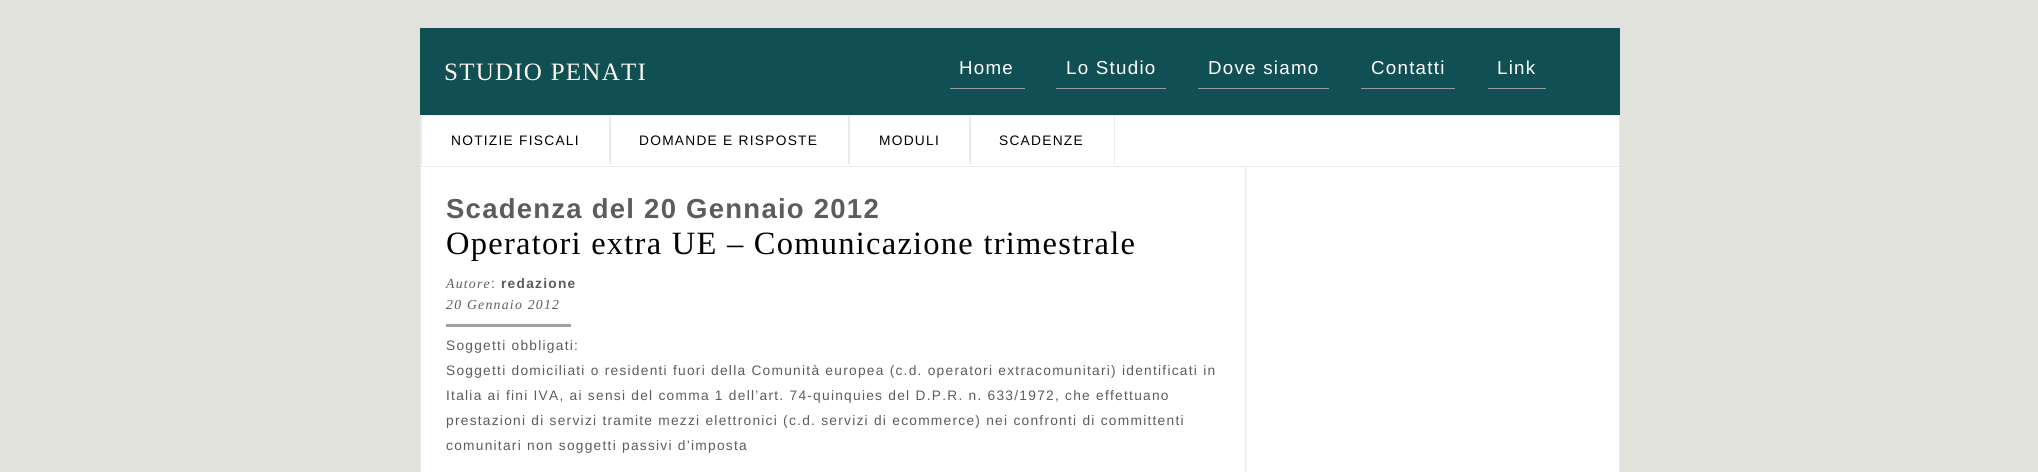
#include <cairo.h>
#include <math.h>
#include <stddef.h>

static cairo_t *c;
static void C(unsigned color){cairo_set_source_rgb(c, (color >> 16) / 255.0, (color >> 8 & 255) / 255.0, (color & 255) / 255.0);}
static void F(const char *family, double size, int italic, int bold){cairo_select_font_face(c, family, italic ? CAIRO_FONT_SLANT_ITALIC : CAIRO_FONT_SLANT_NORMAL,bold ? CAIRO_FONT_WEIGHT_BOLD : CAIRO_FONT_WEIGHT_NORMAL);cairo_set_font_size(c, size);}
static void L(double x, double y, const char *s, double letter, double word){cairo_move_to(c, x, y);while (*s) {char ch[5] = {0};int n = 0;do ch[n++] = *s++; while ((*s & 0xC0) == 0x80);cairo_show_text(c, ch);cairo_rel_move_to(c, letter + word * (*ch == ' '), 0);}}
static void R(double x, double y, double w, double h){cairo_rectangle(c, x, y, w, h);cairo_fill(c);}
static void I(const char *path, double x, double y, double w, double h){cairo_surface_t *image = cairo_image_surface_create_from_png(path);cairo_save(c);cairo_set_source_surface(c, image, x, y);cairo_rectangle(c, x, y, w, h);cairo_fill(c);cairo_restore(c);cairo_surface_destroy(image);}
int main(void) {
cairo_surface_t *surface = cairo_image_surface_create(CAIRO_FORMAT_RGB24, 2038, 472);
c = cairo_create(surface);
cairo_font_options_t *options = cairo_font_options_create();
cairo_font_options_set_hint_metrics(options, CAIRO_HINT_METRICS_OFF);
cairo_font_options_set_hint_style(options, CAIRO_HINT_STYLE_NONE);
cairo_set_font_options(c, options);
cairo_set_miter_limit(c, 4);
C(0xe1e2dc);
cairo_paint(c);
C(0x104f53);
R(420,28,1200,87);
F("Liberation Serif",25,0,0);
C(0xfff7eb);
L(444,80,"STUDIO PENATI",1.25,0);
F("Liberation Sans",18.75,0,0);
C(0xffffff);
L(959,74,"Home",1.25,0);
C(0x999999);
R(950,88,75,1);
C(0xffffff);
L(1066,74,"Lo Studio",1.25,0);
C(0x999999);
R(1056,88,110,1);
C(0xffffff);
L(1208,74,"Dove siamo",1.25,0);
C(0x999999);
R(1198,88,131,1);
C(0xffffff);
L(1371,74,"Contatti",1.25,0);
C(0x999999);
R(1361,88,94,1);
C(0xffffff);
L(1497,74,"Link",1.25,0);
C(0x999999);
R(1488,88,58,1);
cairo_rectangle(c,420.5,115.5,1199,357);
C(0xeaeaea);
cairo_set_line_width(c,1);
cairo_stroke(c);
C(0xffffff);
R(421,116,1198,356);
C(0xeaeaea);
R(421,166,1198,1);
R(609,116,2,48);
R(421,116,1,48);
F("Liberation Sans",13.75,0,0);
C(0x000000);
L(451,145,"NOTIZIE FISCALI",1.25,0);
C(0xeaeaea);
R(848,116,2,48);
C(0x000000);
L(639,145,"DOMANDE E RISPOSTE",1.25,0);
C(0xeaeaea);
R(969,116,2,48);
C(0x000000);
L(879,145,"MODULI",1.25,0);
C(0xeaeaea);
R(1114,116,1,48);
C(0x000000);
L(999,145,"SCADENZE",1.25,0);
I("1.png",1245,167,2,305);
F("Liberation Sans",27.5,0,1);
C(0x5c5c5c);
L(446,218,"Scadenza del 20 Gennaio 2012",1.25,0);
F("Liberation Serif",32.5,0,0);
C(0x000000);
L(446,254,"Operatori extra UE – Comunicazione trimestrale",1.25,0);
F("Liberation Serif",13.75,1,0);
C(0x5c5c5c);
L(446,288,"Autore",1.25,0);
F("Liberation Sans",13.75,0,0);
L(491,288,":",1.25,0);
F("Liberation Sans",13.75,0,1);
L(501,288,"redazione",1.25,0);
F("Liberation Serif",13.75,1,0);
L(446,309,"20 Gennaio 2012",1.25,0);
C(0xa0a0a0);
R(446,324,125,3);
F("Liberation Sans",13.75,0,0);
C(0x5c5c5c);
L(446,350,"Soggetti obbligati:",1.25,0);
L(446,375,"Soggetti domiciliati o residenti fuori della Comunità europea (c.d. operatori extracomunitari) identificati in",1.25,0);
L(446,400,"Italia ai fini IVA, ai sensi del comma 1 dell’art. 74-quinquies del D.P.R. n. 633/1972, che effettuano",1.25,0);
L(446,425,"prestazioni di servizi tramite mezzi elettronici (c.d. servizi di ecommerce) nei confronti di committenti",1.25,0);
L(446,450,"comunitari non soggetti passivi d’imposta",1.25,0);
cairo_surface_write_to_png(surface, "o.png");
cairo_font_options_destroy(options);
cairo_destroy(c);
cairo_surface_destroy(surface);
return 0;
}
